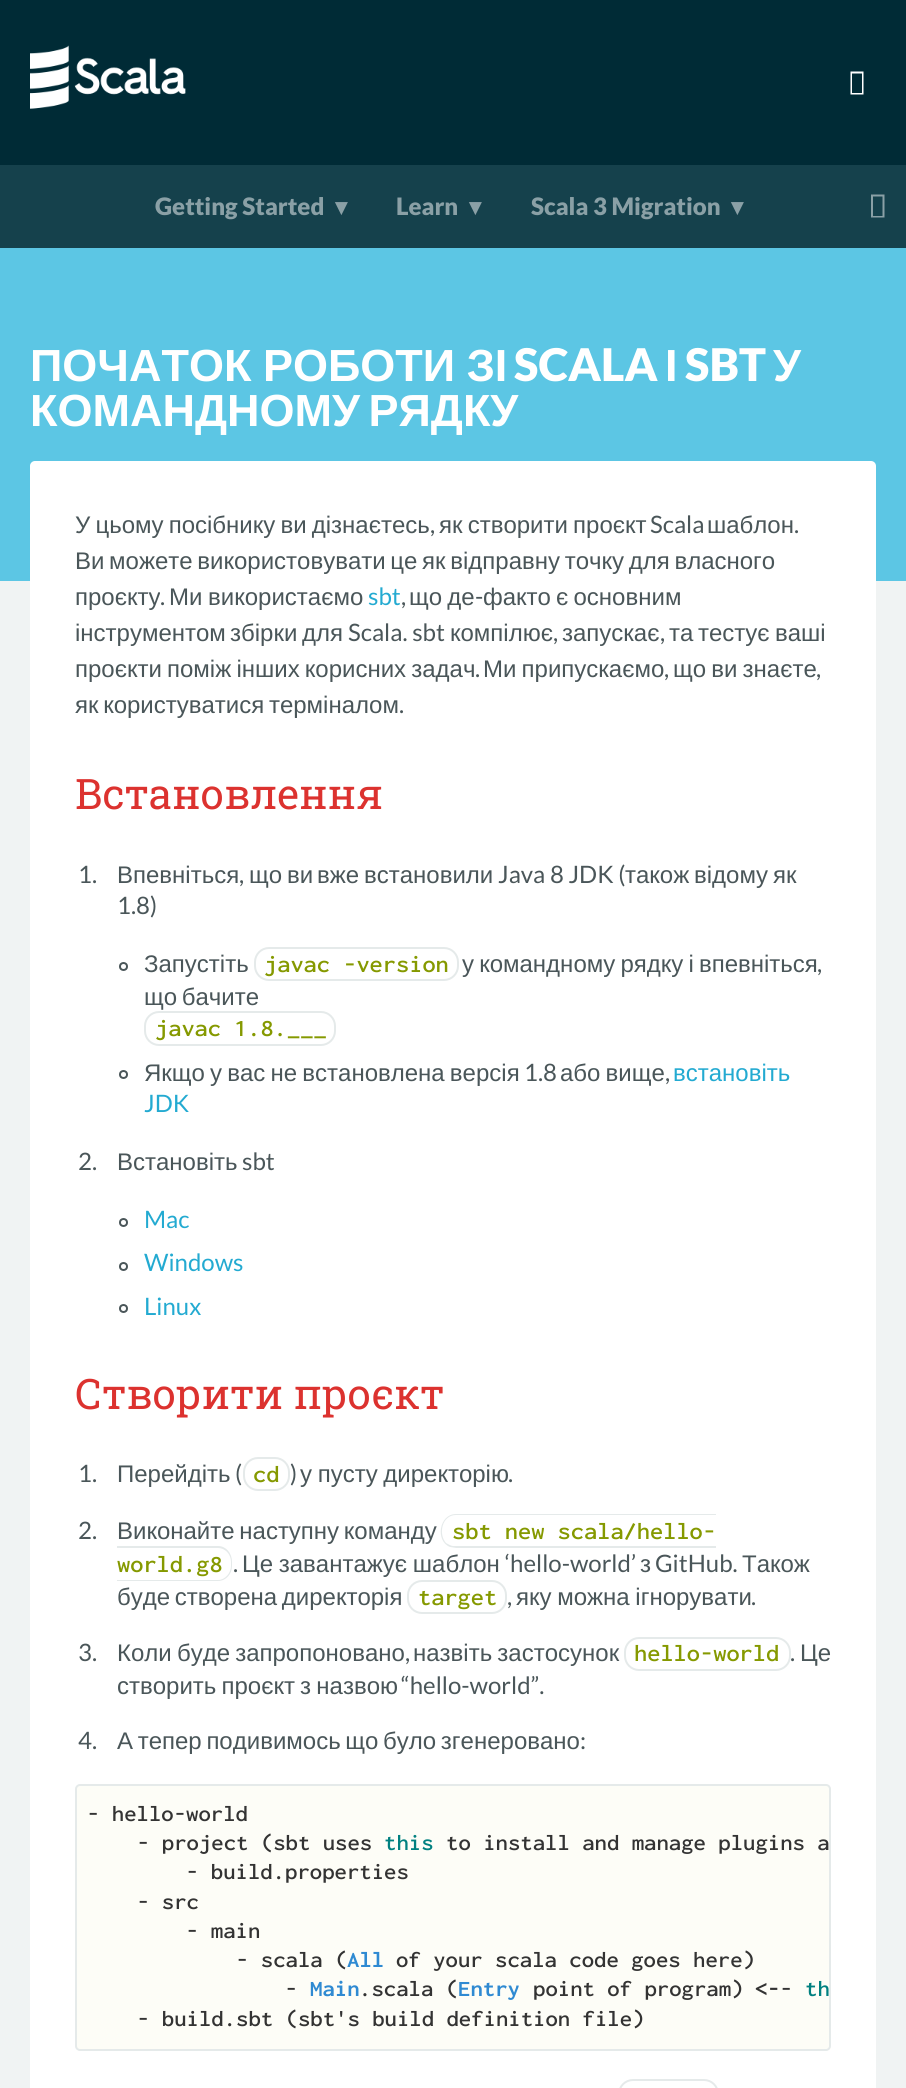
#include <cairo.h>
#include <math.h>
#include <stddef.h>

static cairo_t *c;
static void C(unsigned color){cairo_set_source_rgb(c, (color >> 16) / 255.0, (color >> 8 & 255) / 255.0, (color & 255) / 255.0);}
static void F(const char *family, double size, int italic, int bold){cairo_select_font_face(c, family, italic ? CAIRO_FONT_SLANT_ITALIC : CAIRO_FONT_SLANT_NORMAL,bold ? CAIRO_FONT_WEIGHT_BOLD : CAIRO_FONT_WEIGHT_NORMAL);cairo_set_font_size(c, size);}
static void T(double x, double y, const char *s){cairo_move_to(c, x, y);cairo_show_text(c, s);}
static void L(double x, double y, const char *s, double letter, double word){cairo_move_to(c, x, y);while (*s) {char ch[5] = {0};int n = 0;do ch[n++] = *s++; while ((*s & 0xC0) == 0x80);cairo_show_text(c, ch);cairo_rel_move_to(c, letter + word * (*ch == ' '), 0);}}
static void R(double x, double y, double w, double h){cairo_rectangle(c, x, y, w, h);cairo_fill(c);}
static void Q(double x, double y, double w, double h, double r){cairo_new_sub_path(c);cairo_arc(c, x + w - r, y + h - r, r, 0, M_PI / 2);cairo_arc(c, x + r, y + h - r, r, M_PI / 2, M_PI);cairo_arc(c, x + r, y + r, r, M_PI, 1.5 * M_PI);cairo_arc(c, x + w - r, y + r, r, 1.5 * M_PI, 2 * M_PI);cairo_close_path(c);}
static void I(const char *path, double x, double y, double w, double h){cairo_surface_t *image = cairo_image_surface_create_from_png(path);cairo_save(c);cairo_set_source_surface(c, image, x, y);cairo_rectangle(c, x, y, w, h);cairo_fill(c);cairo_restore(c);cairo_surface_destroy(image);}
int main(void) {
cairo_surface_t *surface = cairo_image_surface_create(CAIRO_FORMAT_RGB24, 906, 2088);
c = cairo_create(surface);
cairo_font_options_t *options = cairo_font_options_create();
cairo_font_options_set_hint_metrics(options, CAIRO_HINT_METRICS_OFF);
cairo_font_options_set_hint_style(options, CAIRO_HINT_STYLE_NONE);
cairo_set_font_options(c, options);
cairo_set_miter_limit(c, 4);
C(0x002b36);
cairo_paint(c);
I("1.png",30,45,156,64);
C(0xffffff);
cairo_new_path(c);
cairo_move_to(c,850.5,94.5);
cairo_line_to(c,850.5,71.5);
cairo_line_to(c,863.5,71.5);
cairo_line_to(c,863.5,94.5);
cairo_close_path(c);
cairo_move_to(c,852,93);
cairo_line_to(c,862,93);
cairo_line_to(c,862,73.5);
cairo_line_to(c,852,73.5);
cairo_close_path(c);
cairo_fill(c);
C(0x15414c);
R(0,165,906,83);
F("Lato Black",24,0,0);
C(0x8aa0a6);
T(155,215,"Getting Started");
F("DejaVu Sans",24,0,1);
T(335,215,"▾");
F("Lato Black",24,0,0);
T(396,215,"Learn");
F("DejaVu Sans",24,0,1);
T(469,215,"▾");
F("Lato Black",24,0,0);
T(531,215,"Scala 3 Migration");
F("DejaVu Sans",24,0,1);
T(731,215,"▾");
cairo_new_path(c);
cairo_move_to(c,871,217.5);
cairo_line_to(c,871,194.5);
cairo_line_to(c,884.5,194.5);
cairo_line_to(c,884.5,217.5);
cairo_close_path(c);
cairo_move_to(c,873,216);
cairo_line_to(c,882.5,216);
cairo_line_to(c,882.5,196.5);
cairo_line_to(c,873,196.5);
cairo_close_path(c);
cairo_fill(c);
C(0xf0f3f3);
R(0,581,906,1507);
C(0x5cc6e4);
R(0,248,906,333);
F("Liberation Sans",45,0,1);
C(0xffffff);
L(30,381,"ПОЧАТОК РОБОТИ ЗІ",0,-1);
F("Lato Black",45,0,0);
T(514,381,"SCALA");
F("Liberation Sans",45,0,1);
T(665,381,"І");
F("Lato Black",45,0,0);
T(685,381,"SBT");
F("Liberation Sans",45,0,1);
T(773,381,"У");
L(30,426,"КОМАНДНОМУ РЯДКУ",0,-4);
Q(30,461,846,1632,5);
cairo_fill(c);
F("Liberation Sans",24,0,0);
C(0x4a5659);
L(75,533,"У цьому посібнику ви дізнаєтесь",0,-1.5);
F("Lato",24,0,0);
T(430,533,",");
F("Liberation Sans",24,0,0);
L(439,533,"як створити проєкт",0,-1.5);
F("Lato",24,0,0);
T(650,533,"Scala");
F("Liberation Sans",24,0,0);
T(707,533,"шаблон");
F("Lato",24,0,0);
T(794,533,".");
F("Liberation Sans",24,0,0);
L(75,569,"Ви можете використовувати це як відправну точку для власного",0,-2);
T(75,605,"проєкту");
L(169,605,"Ми використаємо",0,-1);
F("Lato",24,0,0);
C(0x23aad1);
T(368,605,"sbt");
F("Liberation Sans",24,0,0);
C(0x4a5659);
L(409,605,"що де",0,-1.5);
F("Lato",24,0,0);
T(475,605,"-");
F("Liberation Sans",24,0,0);
L(483,605,"факто є основним",0,-1.5);
F("Lato",24,0,0);
T(160,605,".");
T(401,605,",");
F("Liberation Sans",24,0,0);
T(75,641,"інструментом");
T(230,641,"збірки");
T(302,641,"для");
F("Lato",24,0,0);
T(348,641,"Scala. sbt");
F("Liberation Sans",24,0,0);
T(450,641,"компілює");
F("Lato",24,0,0);
T(553,641,",");
F("Liberation Sans",24,0,0);
T(562,641,"запускає");
F("Lato",24,0,0);
T(660,641,",");
F("Liberation Sans",24,0,0);
T(669,641,"та");
T(698,641,"тестує");
T(775,641,"ваші");
L(75,677,"проєкти поміж інших корисних задач",0,-1.5);
F("Lato",24,0,0);
T(475,677,".");
F("Liberation Sans",24,0,0);
L(483,677,"Ми припускаємо",0,-1.5);
F("Lato",24,0,0);
T(664,677,",");
F("Liberation Sans",24,0,0);
L(673,677,"що ви знаєте",0,-1.5);
F("Lato",24,0,0);
T(816,677,",");
F("Liberation Sans",24,0,0);
L(75,713,"як користуватися терміналом",0,-2);
F("Lato",24,0,0);
T(399,713,".");
F("Roboto Slab",42,0,0);
C(0xdc322f);
T(75,809,"Встановлення");
F("Lato",24,0,0);
C(0x4a5659);
T(78,883,"1.");
F("Liberation Sans",24,0,0);
T(117,883,"Впевніться");
F("Lato",24,0,0);
T(239,883,",");
F("Liberation Sans",24,0,0);
T(249,883,"що");
T(287,883,"ви");
T(317,883,"вже");
T(364,883,"встановили");
F("Lato",24,0,0);
T(498,883,"Java 8 JDK (");
F("Liberation Sans",24,0,0);
T(625,883,"також");
T(694,883,"відому");
T(773,883,"як");
F("Lato",24,0,0);
T(117,914,"1.8)");
cairo_new_path(c);
cairo_arc(c,123.5,966.5,3.5,0,2 * M_PI);
cairo_stroke(c);
F("Liberation Sans",24,0,0);
T(144,972,"Запустіть");
Q(255,948,203,32,14);
C(0xe5eaea);
cairo_stroke(c);
F("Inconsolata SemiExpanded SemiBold",24,0,0);
C(0x859900);
T(264,972,"javac -version");
F("Liberation Sans",24,0,0);
C(0x4a5659);
L(462,972,"у командному рядку і впевніться",0,-1.5);
F("Lato",24,0,0);
T(817,972,",");
F("Liberation Sans",24,0,0);
L(144,1005,"що бачите",0,-2);
Q(145,1012,190,33,14);
C(0xe5eaea);
cairo_stroke(c);
F("Inconsolata SemiExpanded SemiBold",24,0,0);
C(0x859900);
T(155,1036,"javac 1.8.___");
cairo_new_path(c);
cairo_arc(c,123.5,1074.5,3.5,0,2 * M_PI);
C(0x4a5659);
cairo_stroke(c);
F("Liberation Sans",24,0,0);
L(144,1081,"Якщо у вас не встановлена версія",0,-1.5);
F("Lato",24,0,0);
T(524,1081,"1.8");
F("Liberation Sans",24,0,0);
L(560,1081,"або вище",0,-1.5);
C(0x23aad1);
T(673,1081,"встановіть");
F("Lato",24,0,0);
C(0x4a5659);
T(665,1081,",");
C(0x23aad1);
T(144,1112,"JDK");
C(0x4a5659);
T(78,1170,"2.");
F("Liberation Sans",24,0,0);
T(117,1170,"Встановіть");
F("Lato",24,0,0);
T(242,1170,"sbt");
cairo_new_path(c);
cairo_arc(c,123.5,1222.5,3.5,0,2 * M_PI);
cairo_stroke(c);
C(0x23aad1);
T(144,1228,"Mac");
cairo_new_path(c);
cairo_arc(c,123.5,1266.5,3.5,0,2 * M_PI);
C(0x4a5659);
cairo_stroke(c);
C(0x23aad1);
T(144,1271,"Windows");
cairo_new_path(c);
cairo_arc(c,123.5,1308.5,3.5,0,2 * M_PI);
C(0x4a5659);
cairo_stroke(c);
C(0x23aad1);
T(144,1315,"Linux");
F("Roboto Slab",42,0,0);
C(0xdc322f);
T(75,1409,"Створити проєкт");
F("Lato",24,0,0);
C(0x4a5659);
T(78,1482,"1.");
F("Liberation Sans",24,0,0);
T(117,1482,"Перейдіть");
F("Lato",24,0,0);
T(235,1482,"(");
Q(244,1458,45,32,14);
C(0xe5eaea);
cairo_stroke(c);
F("Inconsolata SemiExpanded SemiBold",24,0,0);
C(0x859900);
T(253,1482,"cd");
F("Lato",24,0,0);
C(0x4a5659);
T(290,1482,")");
F("Liberation Sans",24,0,0);
L(300,1482,"у пусту директорію",0,-1);
F("Lato",24,0,0);
T(508,1482,".");
T(78,1539,"2.");
F("Liberation Sans",24,0,0);
L(117,1539,"Виконайте наступну команду",0,-2);
C(0xe5eaea);
cairo_set_fill_rule(c,CAIRO_FILL_RULE_EVEN_ODD);
cairo_new_path(c);
cairo_move_to(c,456,1514);
cairo_line_to(c,716,1514);
cairo_line_to(c,716,1548);
cairo_line_to(c,456,1548);
cairo_line_to(c,450,1547);
cairo_curve_to(c,435,1541,439,1514,456,1514);
cairo_close_path(c);
cairo_move_to(c,456,1515);
cairo_line_to(c,716,1515);
cairo_line_to(c,716,1546);
cairo_line_to(c,453,1546);
cairo_curve_to(c,451,1546,448,1544,446,1543);
cairo_curve_to(c,438,1534,442,1515,456,1515);
cairo_close_path(c);
cairo_fill(c);
F("Inconsolata SemiExpanded SemiBold",24,0,0);
C(0x859900);
T(452,1539,"sbt new scala/hello-");
C(0xe5eaea);
cairo_new_path(c);
cairo_move_to(c,117,1546);
cairo_line_to(c,218,1546);
cairo_curve_to(c,226,1546,232,1553,232,1562);
cairo_line_to(c,232,1566);
cairo_curve_to(c,232,1574,226,1581,218,1581);
cairo_line_to(c,117,1581);
cairo_close_path(c);
cairo_move_to(c,117,1548);
cairo_line_to(c,218,1548);
cairo_curve_to(c,225,1548,231,1554,231,1562);
cairo_line_to(c,231,1566);
cairo_curve_to(c,231,1573,225,1580,218,1580);
cairo_line_to(c,117,1580);
cairo_close_path(c);
cairo_fill(c);
C(0x859900);
T(117,1572,"world.g8");
F("Lato",24,0,0);
C(0x4a5659);
T(233,1572,".");
F("Liberation Sans",24,0,0);
L(242,1572,"Це завантажує шаблон",0,-1);
F("Lato",24,0,0);
T(505,1572,"‘hello-world’");
F("Liberation Sans",24,0,0);
T(640,1572,"з");
F("Lato",24,0,0);
T(655,1572,"GitHub.");
F("Liberation Sans",24,0,0);
T(742,1572,"Також");
L(117,1605,"буде створена директорія",0,-2);
Q(408,1581,98,32,14);
C(0xe5eaea);
cairo_stroke(c);
F("Inconsolata SemiExpanded SemiBold",24,0,0);
C(0x859900);
T(418,1605,"target");
F("Lato",24,0,0);
C(0x4a5659);
T(507,1605,",");
F("Liberation Sans",24,0,0);
L(516,1605,"яку можна ігнорувати",0,-1);
F("Lato",24,0,0);
T(751,1605,".");
T(78,1661,"3.");
F("Liberation Sans",24,0,0);
L(117,1661,"Коли буде запропоновано",0,-1.5);
F("Lato",24,0,0);
T(405,1661,",");
F("Liberation Sans",24,0,0);
L(413,1661,"назвіть застосунок",0,-1.5);
Q(625,1638,165,32,14);
C(0xe5eaea);
cairo_stroke(c);
F("Inconsolata SemiExpanded SemiBold",24,0,0);
C(0x859900);
T(634,1661,"hello-world");
F("Lato",24,0,0);
C(0x4a5659);
T(790,1661,".");
F("Liberation Sans",24,0,0);
T(800,1661,"Це");
L(117,1694,"створить проєкт з назвою",0,-1.5);
F("Lato",24,0,0);
T(401,1694,"“hello-world”.");
T(78,1749,"4.");
F("Liberation Sans",24,0,0);
L(117,1749,"А тепер подивимось що було згенеровано",0,-2);
F("Lato",24,0,0);
T(580,1749,":");
C(0xfdfdf7);
Q(76,1785,754,265,4);
cairo_fill_preserve(c);
C(0xe5eaea);
cairo_stroke(c);
F("Inconsolata SemiExpanded SemiBold",22.5,0,0);
C(0x333333);
T(87,1821,"- hello-world");
T(137,1850,"- project (sbt uses");
C(0x008080);
T(384,1850,"this");
C(0x333333);
T(446,1850,"to install and manage plugins a");
T(186,1879,"- build.properties");
T(137,1909,"- src");
T(186,1938,"- main");
T(236,1967,"- scala (");
F("Inconsolata SemiExpanded",22.5,0,1);
C(0x2f8ad2);
T(347,1967,"All");
F("Inconsolata SemiExpanded SemiBold",22.5,0,0);
C(0x333333);
T(396,1967,"of your scala code goes here)");
T(285,1996,"-");
F("Inconsolata SemiExpanded",22.5,0,1);
C(0x2f8ad2);
T(310,1996,"Main");
F("Inconsolata SemiExpanded SemiBold",22.5,0,0);
C(0x333333);
T(359,1996,".scala (");
F("Inconsolata SemiExpanded",22.5,0,1);
C(0x2f8ad2);
T(458,1996,"Entry");
F("Inconsolata SemiExpanded SemiBold",22.5,0,0);
C(0x333333);
T(533,1996,"point of program)");
F("Inconsolata SemiExpanded",22.5,0,1);
T(755,1996,"<-");
F("Inconsolata SemiExpanded SemiBold",22.5,0,0);
T(780,1996,"-");
C(0x008080);
T(805,1996,"th");
C(0x333333);
T(137,2026,"- build.sbt (sbt's build definition file)");
Q(619,2080,99,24,14);
C(0xe5eaea);
cairo_stroke(c);
cairo_surface_write_to_png(surface, "o.png");
cairo_font_options_destroy(options);
cairo_destroy(c);
cairo_surface_destroy(surface);
return 0;
}
